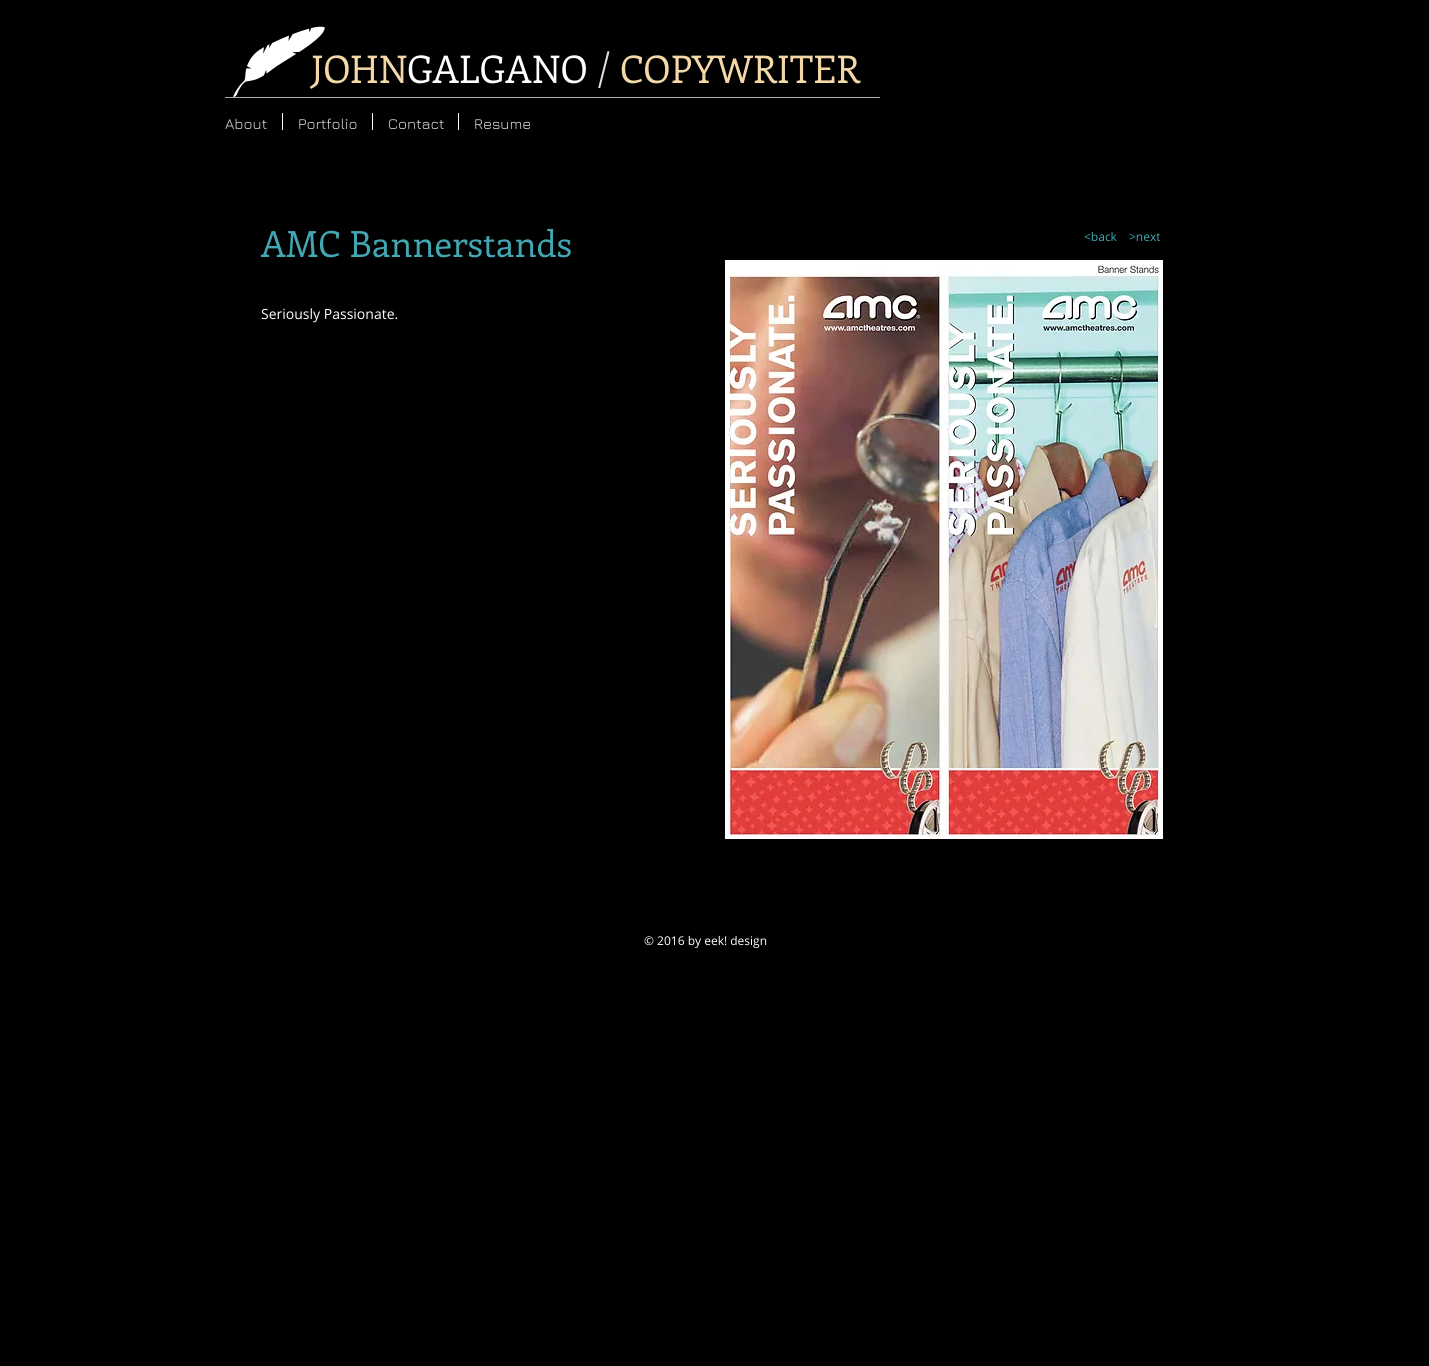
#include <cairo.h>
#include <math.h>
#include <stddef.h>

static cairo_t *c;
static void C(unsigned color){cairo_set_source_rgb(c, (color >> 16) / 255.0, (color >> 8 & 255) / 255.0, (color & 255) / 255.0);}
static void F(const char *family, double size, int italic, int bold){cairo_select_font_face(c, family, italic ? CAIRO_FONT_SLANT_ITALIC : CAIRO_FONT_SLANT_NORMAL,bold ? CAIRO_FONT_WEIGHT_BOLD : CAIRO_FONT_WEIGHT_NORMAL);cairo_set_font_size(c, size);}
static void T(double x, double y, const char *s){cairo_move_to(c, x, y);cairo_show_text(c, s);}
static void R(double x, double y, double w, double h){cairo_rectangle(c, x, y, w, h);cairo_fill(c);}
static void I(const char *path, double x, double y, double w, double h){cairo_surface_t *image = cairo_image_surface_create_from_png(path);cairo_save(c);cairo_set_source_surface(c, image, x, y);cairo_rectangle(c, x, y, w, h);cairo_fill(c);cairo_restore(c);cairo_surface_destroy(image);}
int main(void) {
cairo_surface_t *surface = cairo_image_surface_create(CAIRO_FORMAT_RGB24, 1429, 1366);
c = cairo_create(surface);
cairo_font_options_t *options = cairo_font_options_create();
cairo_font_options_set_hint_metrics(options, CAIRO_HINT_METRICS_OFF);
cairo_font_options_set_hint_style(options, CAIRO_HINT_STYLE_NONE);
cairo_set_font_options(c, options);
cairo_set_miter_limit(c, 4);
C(0x000000);
cairo_paint(c);
F("Enriqueta",38,0,0);
C(0xf4d8a8);
T(311,83,"JOHN");
I("1.png",233,26,92,71);
C(0xffffff);
T(407,83,"GALGANO");
C(0xe0dddd);
T(597,83,"/");
C(0xf4d8a8);
T(620,83,"COPYWRITER");
C(0xaaa8a8);
R(225,97,655,1);
F("Jura",15,0,0);
C(0xe0dddd);
T(225,129,"About");
C(0xffffff);
R(282,113,1,17);
C(0xe0dddd);
T(298,129,"Portfolio");
C(0xffffff);
R(372,113,1,17);
C(0xe0dddd);
T(388,129,"Contact");
C(0xffffff);
R(458,113,1,17);
C(0xe0dddd);
T(474,129,"Resume");
F("Enriqueta",36,0,0);
C(0x42a7b2);
T(261,257,"AMC Bannerstands");
F("Open Sans",12,0,0);
T(1084,241,"<back");
T(1129,241,">next");
F("Open Sans",14,0,0);
C(0xffffff);
T(261,319,"Seriously Passionate.");
I("2.png",725,260,438,579);
F("Open Sans",12,0,0);
T(644,945,"© 2016 by eek! design");
cairo_surface_write_to_png(surface, "o.png");
cairo_font_options_destroy(options);
cairo_destroy(c);
cairo_surface_destroy(surface);
return 0;
}
